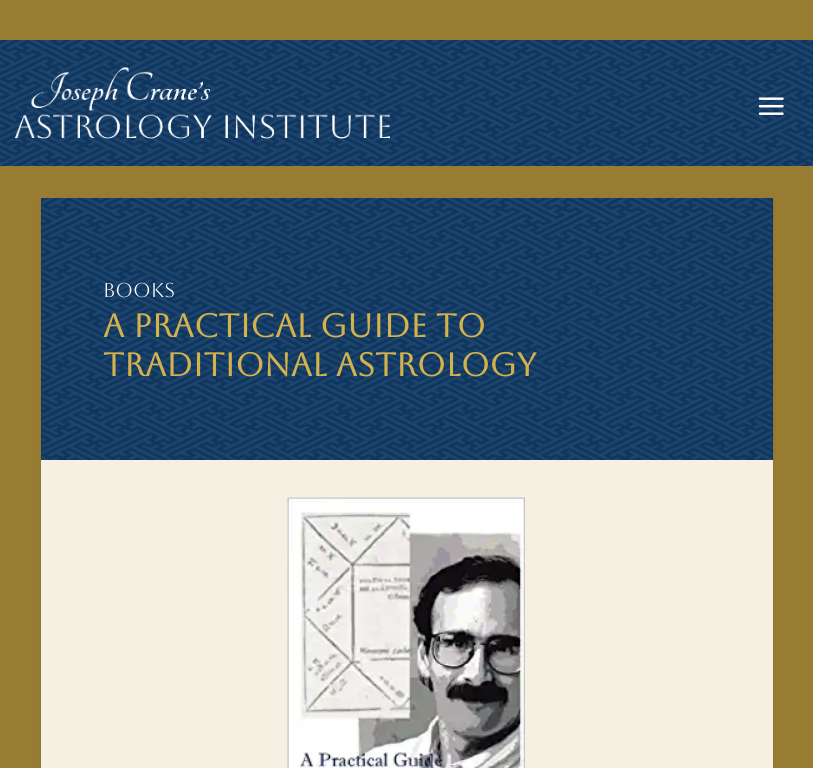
#include <cairo.h>
#include <math.h>
#include <stddef.h>

static cairo_t *c;
static void C(unsigned color){cairo_set_source_rgb(c, (color >> 16) / 255.0, (color >> 8 & 255) / 255.0, (color & 255) / 255.0);}
static void F(const char *family, double size, int italic, int bold){cairo_select_font_face(c, family, italic ? CAIRO_FONT_SLANT_ITALIC : CAIRO_FONT_SLANT_NORMAL,bold ? CAIRO_FONT_WEIGHT_BOLD : CAIRO_FONT_WEIGHT_NORMAL);cairo_set_font_size(c, size);}
static void T(double x, double y, const char *s){cairo_move_to(c, x, y);cairo_show_text(c, s);}
static void R(double x, double y, double w, double h){cairo_rectangle(c, x, y, w, h);cairo_fill(c);}
static void Q(double x, double y, double w, double h, double r){cairo_new_sub_path(c);cairo_arc(c, x + w - r, y + h - r, r, 0, M_PI / 2);cairo_arc(c, x + r, y + h - r, r, M_PI / 2, M_PI);cairo_arc(c, x + r, y + r, r, M_PI, 1.5 * M_PI);cairo_arc(c, x + w - r, y + r, r, 1.5 * M_PI, 2 * M_PI);cairo_close_path(c);}
static void S(double x, double y, double w, double h, double r, double blur, double alpha){cairo_push_group_with_content(c, CAIRO_CONTENT_ALPHA);cairo_set_operator(c, CAIRO_OPERATOR_SOURCE);for (int i = 15; i >= -15 && fmin(w, h) + blur * i / 3 > 0; i -= 2) {double e = blur * i / 6;cairo_set_source_rgba(c, 0, 0, 0, alpha * erfc((i - 1) / 8.5) / 2);Q(x - e, y - e, w + 2 * e, h + 2 * e, fmax(0, fmin(r + e + blur * .6, fmin(w, h) / 2 + e)));cairo_fill(c);}cairo_pattern_t *soft = cairo_pop_group(c);cairo_mask(c, soft);cairo_pattern_destroy(soft);}
static void I(const char *path, double x, double y, double w, double h){cairo_surface_t *image = cairo_image_surface_create_from_png(path);cairo_save(c);cairo_set_source_surface(c, image, x, y);cairo_rectangle(c, x, y, w, h);cairo_fill(c);cairo_restore(c);cairo_surface_destroy(image);}
int main(void) {
cairo_surface_t *surface = cairo_image_surface_create(CAIRO_FORMAT_RGB24, 813, 768);
c = cairo_create(surface);
cairo_font_options_t *options = cairo_font_options_create();
cairo_font_options_set_hint_metrics(options, CAIRO_HINT_METRICS_OFF);
cairo_font_options_set_hint_style(options, CAIRO_HINT_STYLE_NONE);
cairo_set_font_options(c, options);
cairo_set_miter_limit(c, 4);
C(0x987c32);
cairo_paint(c);
C(0x04305d);
R(0,40,813,126);
I("1.png",0,40,813,127);
I("2.png",15,67,375,72);
I("3.png",758,97,26,18);
C(0x000000);
S(41,199,732,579,4,2,.1);
C(0xf5f0e1);
R(41,460,732,308);
C(0x04305d);
R(41,198,732,262);
I("4.png",41,197,732,263);
F("Aboreto",20,0,0);
C(0xffffff);
T(103,297,"Books");
F("Aboreto",32.5,0,1);
C(0xd3b24c);
T(103,337,"A PRACTICAL GUIDE TO");
T(103,376,"TRADITIONAL ASTROLOGY");
I("5.png",287,497,238,271);
cairo_surface_write_to_png(surface, "o.png");
cairo_font_options_destroy(options);
cairo_destroy(c);
cairo_surface_destroy(surface);
return 0;
}
